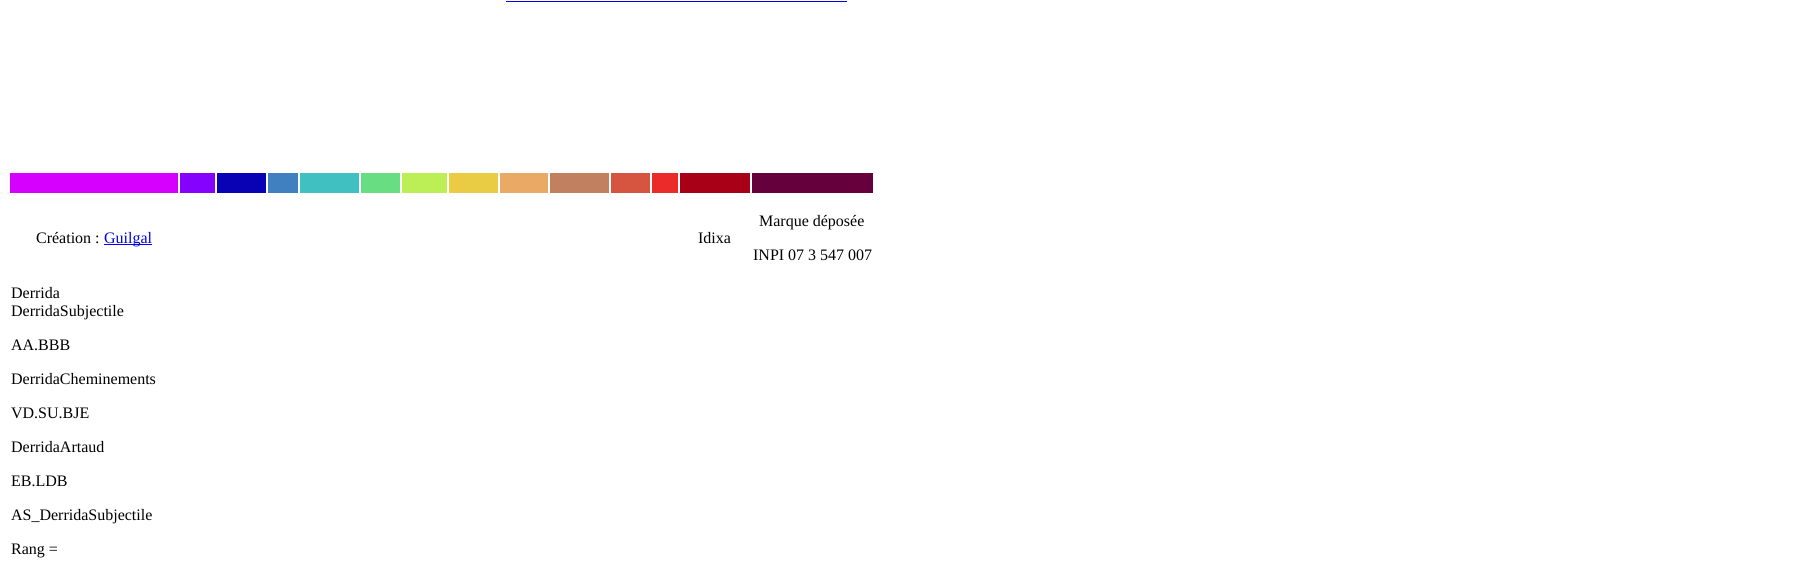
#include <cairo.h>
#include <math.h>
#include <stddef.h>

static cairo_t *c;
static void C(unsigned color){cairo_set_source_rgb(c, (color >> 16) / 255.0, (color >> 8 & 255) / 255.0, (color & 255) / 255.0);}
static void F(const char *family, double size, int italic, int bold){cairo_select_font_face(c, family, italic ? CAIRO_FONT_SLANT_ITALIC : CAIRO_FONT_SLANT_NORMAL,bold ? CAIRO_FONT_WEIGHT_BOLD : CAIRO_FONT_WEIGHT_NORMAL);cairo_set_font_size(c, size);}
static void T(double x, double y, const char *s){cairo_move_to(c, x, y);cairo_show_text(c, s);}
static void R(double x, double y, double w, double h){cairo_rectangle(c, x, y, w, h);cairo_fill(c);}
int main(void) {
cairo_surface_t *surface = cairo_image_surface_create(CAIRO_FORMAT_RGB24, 1812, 567);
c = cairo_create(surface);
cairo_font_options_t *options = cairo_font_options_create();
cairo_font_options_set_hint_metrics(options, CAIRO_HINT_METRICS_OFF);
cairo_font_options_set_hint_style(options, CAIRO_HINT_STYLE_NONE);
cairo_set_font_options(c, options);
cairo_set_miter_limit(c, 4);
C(0xffffff);
cairo_paint(c);
C(0x0000ee);
R(506,1,341,1);
C(0xd500ff);
R(10,173,168,20);
C(0x8502ff);
R(180,173,35,20);
C(0x0902b4);
R(217,173,49,20);
C(0x4080c1);
R(268,173,30,20);
C(0x40c0c0);
R(300,173,59,20);
C(0x68dd82);
R(361,173,39,20);
C(0xbcee56);
R(402,173,45,20);
C(0xeacc44);
R(449,173,49,20);
C(0xeaaa65);
R(500,173,48,20);
C(0xc18060);
R(550,173,59,20);
C(0xd55540);
R(611,173,39,20);
C(0xeb2b2a);
R(652,173,26,20);
C(0xa70017);
R(680,173,70,20);
C(0x66003c);
R(752,173,121,20);
F("Liberation Serif",16,0,0);
C(0x000000);
T(36,243,"Création :");
C(0x0000ee);
R(104,244,48,1);
T(104,243,"Guilgal");
C(0x000000);
T(698,243,"Idixa");
T(759,226,"Marque déposée");
T(753,260,"INPI 07 3 547 007");
T(11,298,"Derrida");
T(11,316,"DerridaSubjectile");
T(11,350,"AA.BBB");
T(11,384,"DerridaCheminements");
T(11,418,"VD.SU.BJE");
T(11,452,"DerridaArtaud");
T(11,486,"EB.LDB");
T(11,520,"AS_DerridaSubjectile");
T(11,554,"Rang =");
cairo_surface_write_to_png(surface, "o.png");
cairo_font_options_destroy(options);
cairo_destroy(c);
cairo_surface_destroy(surface);
return 0;
}
